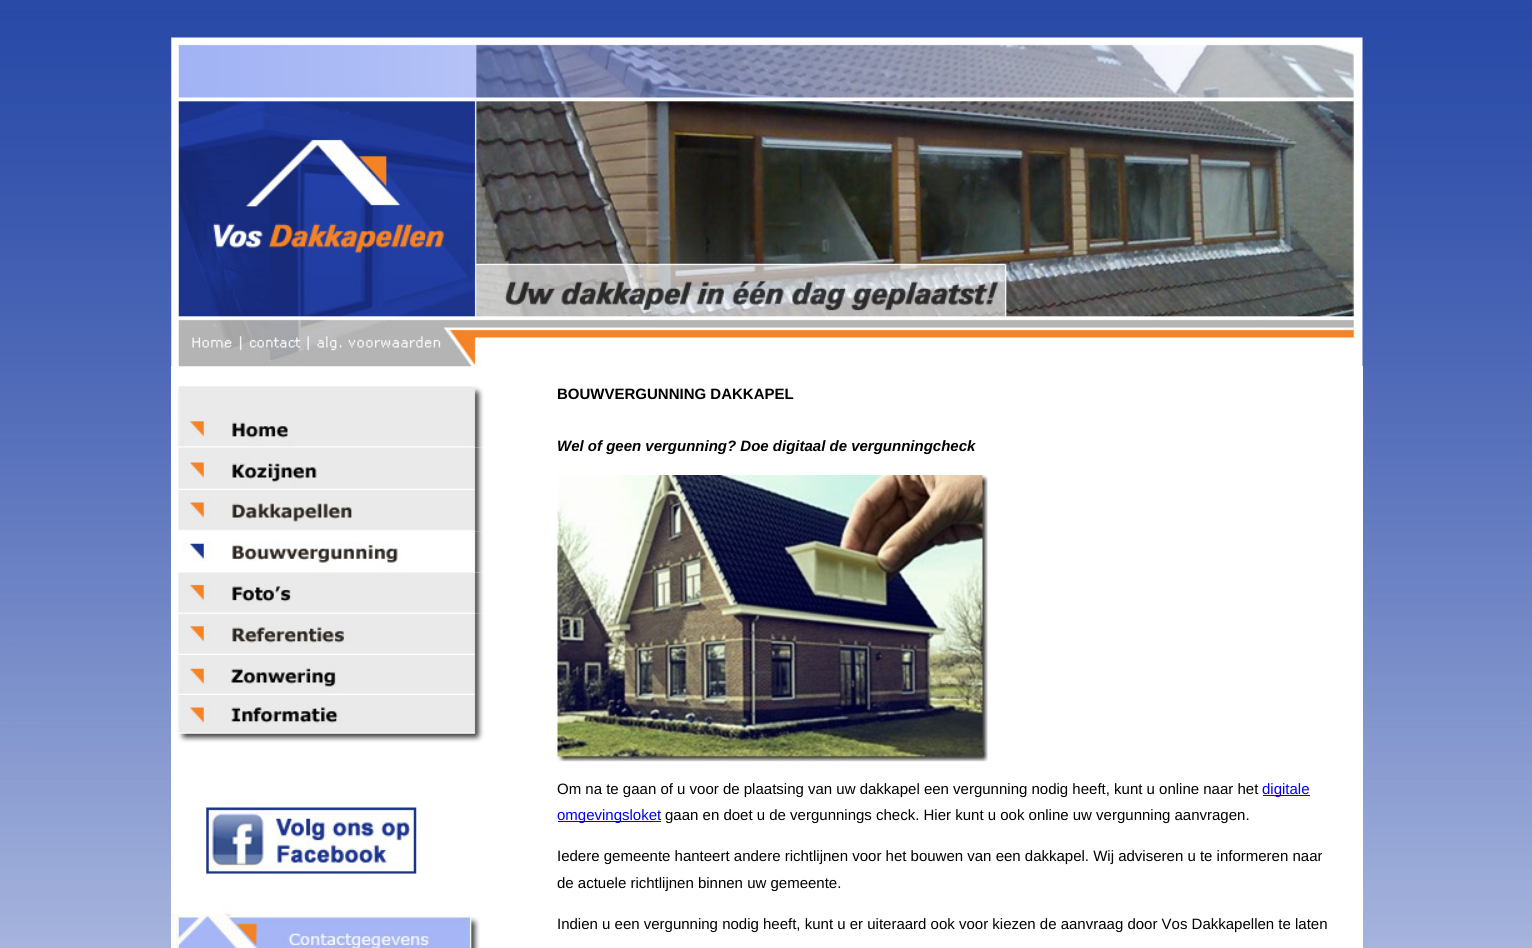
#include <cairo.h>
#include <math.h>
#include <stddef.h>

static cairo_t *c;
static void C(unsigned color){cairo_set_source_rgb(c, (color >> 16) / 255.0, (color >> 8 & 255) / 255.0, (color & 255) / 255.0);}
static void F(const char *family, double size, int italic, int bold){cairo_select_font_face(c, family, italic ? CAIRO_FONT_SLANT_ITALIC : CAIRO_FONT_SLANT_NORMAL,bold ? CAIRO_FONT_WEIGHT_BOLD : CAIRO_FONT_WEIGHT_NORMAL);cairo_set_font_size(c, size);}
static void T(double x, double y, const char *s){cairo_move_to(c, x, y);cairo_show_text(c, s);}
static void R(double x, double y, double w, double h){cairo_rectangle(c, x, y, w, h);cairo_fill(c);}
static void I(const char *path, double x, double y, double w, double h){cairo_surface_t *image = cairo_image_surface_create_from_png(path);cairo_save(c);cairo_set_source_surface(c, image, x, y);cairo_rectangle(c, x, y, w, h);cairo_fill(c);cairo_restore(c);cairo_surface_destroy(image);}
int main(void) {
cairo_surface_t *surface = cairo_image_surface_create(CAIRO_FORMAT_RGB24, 1532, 948);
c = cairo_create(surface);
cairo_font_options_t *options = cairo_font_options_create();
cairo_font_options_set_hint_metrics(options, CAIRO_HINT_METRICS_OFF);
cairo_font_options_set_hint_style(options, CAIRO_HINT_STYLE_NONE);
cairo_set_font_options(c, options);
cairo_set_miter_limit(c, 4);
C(0xffffff);
cairo_paint(c);
I("1.png",0,0,1532,948);
C(0xffffff);
R(171,366,362,582);
R(533,366,830,582);
I("2.png",171,37,1192,330);
I("3.png",206,807,211,67);
I("4.png",171,873,309,75);
I("5.png",177,386,307,62);
I("6.png",178,447,306,43);
I("7.png",178,490,306,42);
I("8.png",181,531,303,42);
I("9.png",178,572,306,42);
I("10.png",178,613,306,42);
I("11.png",177,655,307,40);
I("12.png",177,695,307,48);
F("Liberation Sans",15,0,1);
C(0x000000);
T(557,399,"BOUWVERGUNNING DAKKAPEL");
F("Liberation Sans",15,1,1);
T(557,451,"Wel of geen vergunning? Doe digitaal de vergunningcheck");
I("13.png",557,475,431,287);
F("Liberation Sans",15,0,0);
T(557,794,"Om na te gaan of u voor de plaatsing van uw dakkapel een vergunning nodig heeft, kunt u online naar het");
C(0x0000ee);
R(1263,795,47,1);
T(1262,794,"digitale");
R(558,821,103,1);
T(557,820,"omgevingsloket");
C(0x000000);
T(665,820,"gaan en doet u de vergunnings check. Hier kunt u ook online uw vergunning aanvragen.");
T(557,861,"Iedere gemeente hanteert andere richtlijnen voor het bouwen van een dakkapel. Wij adviseren u te informeren naar");
T(557,888,"de actuele richtlijnen binnen uw gemeente.");
T(557,929,"Indien u een vergunning nodig heeft, kunt u er uiteraard ook voor kiezen de aanvraag door Vos Dakkapellen te laten");
cairo_surface_write_to_png(surface, "o.png");
cairo_font_options_destroy(options);
cairo_destroy(c);
cairo_surface_destroy(surface);
return 0;
}
